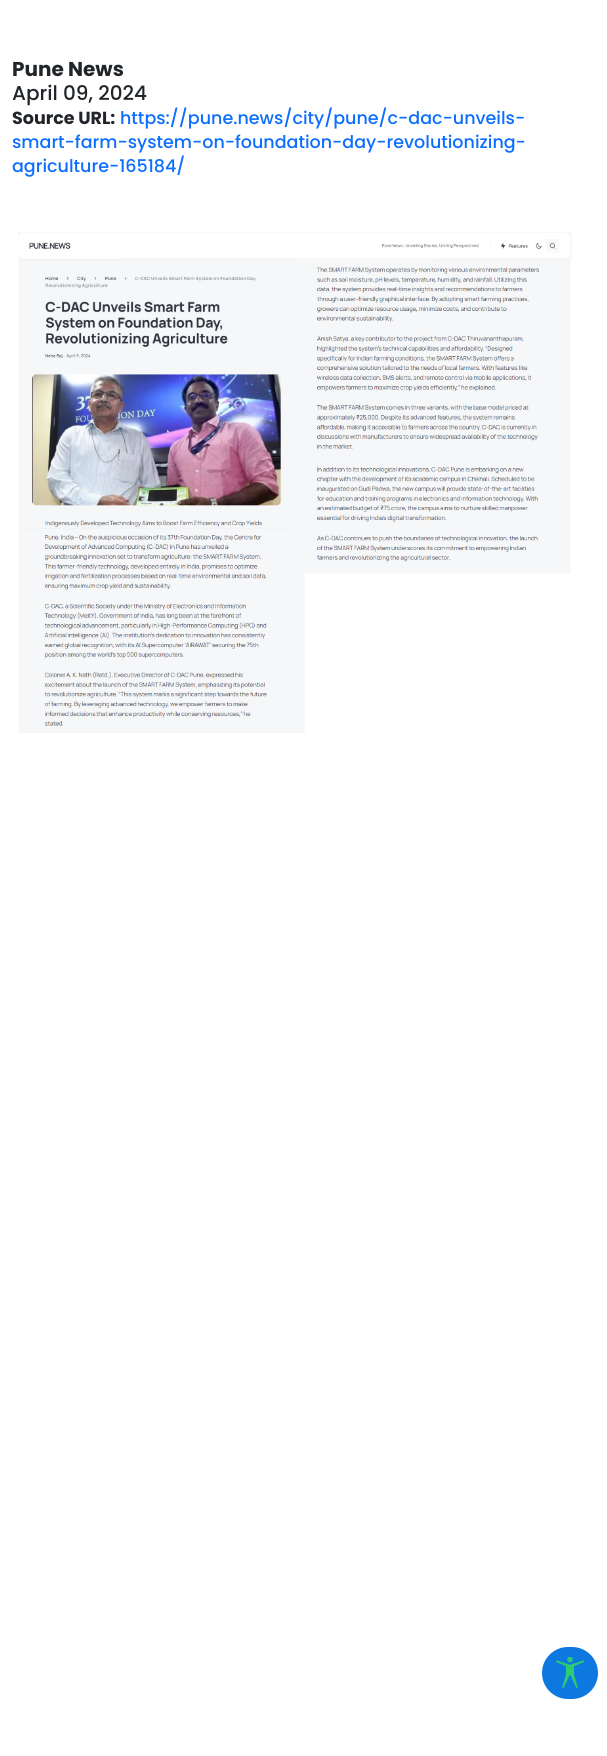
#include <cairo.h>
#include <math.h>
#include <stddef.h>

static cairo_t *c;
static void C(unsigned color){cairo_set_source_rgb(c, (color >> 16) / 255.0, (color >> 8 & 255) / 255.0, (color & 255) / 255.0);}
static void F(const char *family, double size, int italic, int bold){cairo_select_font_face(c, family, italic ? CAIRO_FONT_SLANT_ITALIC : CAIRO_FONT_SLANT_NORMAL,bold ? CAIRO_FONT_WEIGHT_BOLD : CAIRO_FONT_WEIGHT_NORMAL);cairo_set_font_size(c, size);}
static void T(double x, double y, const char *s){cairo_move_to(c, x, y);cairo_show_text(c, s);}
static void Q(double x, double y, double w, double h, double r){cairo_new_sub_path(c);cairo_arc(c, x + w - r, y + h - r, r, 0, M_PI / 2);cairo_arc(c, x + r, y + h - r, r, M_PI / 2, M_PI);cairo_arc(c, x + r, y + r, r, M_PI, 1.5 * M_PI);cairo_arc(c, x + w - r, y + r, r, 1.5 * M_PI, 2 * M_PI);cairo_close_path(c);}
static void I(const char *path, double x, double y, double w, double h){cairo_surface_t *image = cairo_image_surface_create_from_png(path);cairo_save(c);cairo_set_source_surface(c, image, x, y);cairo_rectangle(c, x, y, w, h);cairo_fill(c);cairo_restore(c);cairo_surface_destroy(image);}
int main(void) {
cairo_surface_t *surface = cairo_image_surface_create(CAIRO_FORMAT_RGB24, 607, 1756);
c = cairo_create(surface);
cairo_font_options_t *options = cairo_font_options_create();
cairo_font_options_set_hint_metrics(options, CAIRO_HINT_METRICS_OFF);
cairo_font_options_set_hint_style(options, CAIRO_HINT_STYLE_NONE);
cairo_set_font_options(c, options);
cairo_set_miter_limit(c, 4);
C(0xffffff);
cairo_paint(c);
F("Poppins",20,0,1);
C(0x212529);
T(12,76,"Pune News");
F("Poppins Medium",20,0,0);
T(12,100,"April 09, 2024");
F("Poppins",17.5,0,1);
T(12,124,"Source URL:");
F("Poppins Medium",17.5,0,0);
C(0x0d6efd);
T(120,124,"https://pune.news/city/pune/c-dac-unveils-");
T(12,148,"smart-farm-system-on-foundation-day-revolutionizing-");
T(12,172,"agriculture-165184/");
I("1.png",18,232,554,501);
C(0x0d78df);
Q(541,1646,58,54,27);
cairo_fill_preserve(c);
C(0xffffff);
cairo_stroke(c);
I("2.png",555,1657,30,32);
cairo_surface_write_to_png(surface, "o.png");
cairo_font_options_destroy(options);
cairo_destroy(c);
cairo_surface_destroy(surface);
return 0;
}
